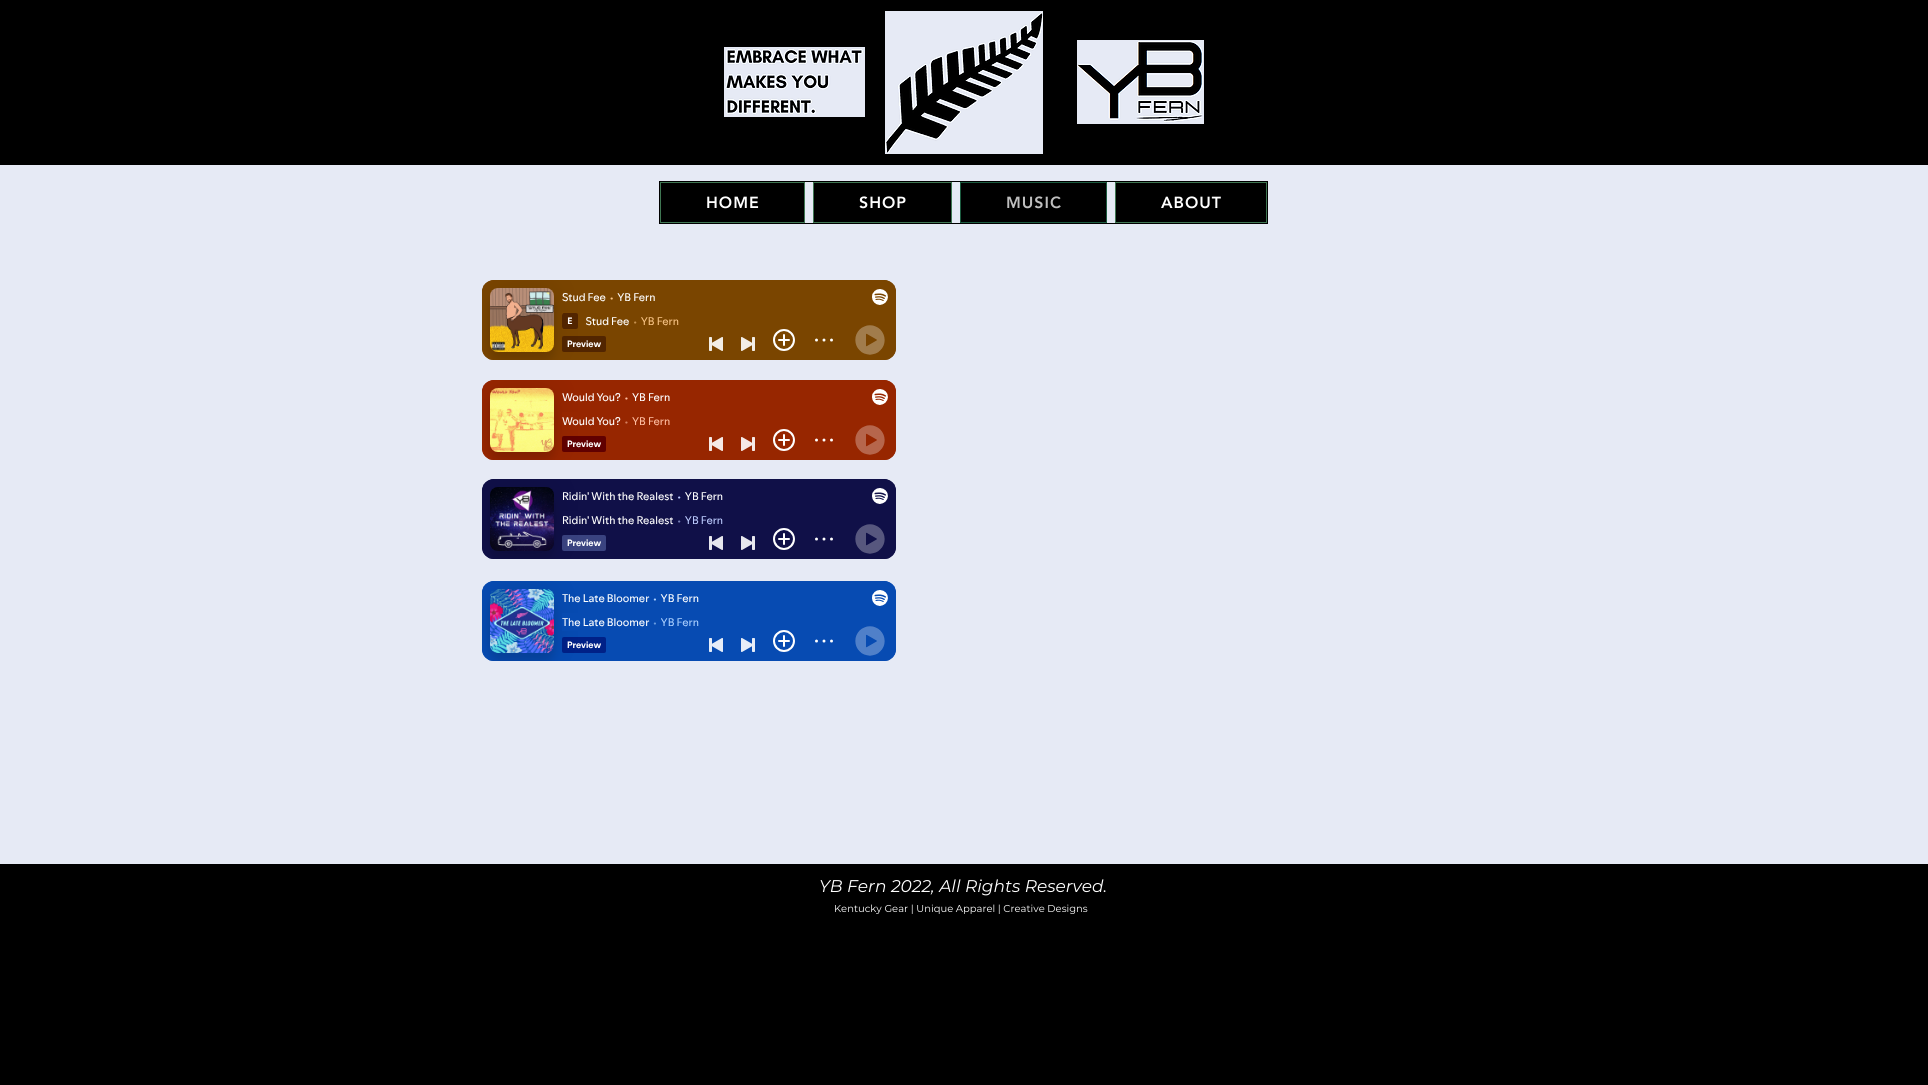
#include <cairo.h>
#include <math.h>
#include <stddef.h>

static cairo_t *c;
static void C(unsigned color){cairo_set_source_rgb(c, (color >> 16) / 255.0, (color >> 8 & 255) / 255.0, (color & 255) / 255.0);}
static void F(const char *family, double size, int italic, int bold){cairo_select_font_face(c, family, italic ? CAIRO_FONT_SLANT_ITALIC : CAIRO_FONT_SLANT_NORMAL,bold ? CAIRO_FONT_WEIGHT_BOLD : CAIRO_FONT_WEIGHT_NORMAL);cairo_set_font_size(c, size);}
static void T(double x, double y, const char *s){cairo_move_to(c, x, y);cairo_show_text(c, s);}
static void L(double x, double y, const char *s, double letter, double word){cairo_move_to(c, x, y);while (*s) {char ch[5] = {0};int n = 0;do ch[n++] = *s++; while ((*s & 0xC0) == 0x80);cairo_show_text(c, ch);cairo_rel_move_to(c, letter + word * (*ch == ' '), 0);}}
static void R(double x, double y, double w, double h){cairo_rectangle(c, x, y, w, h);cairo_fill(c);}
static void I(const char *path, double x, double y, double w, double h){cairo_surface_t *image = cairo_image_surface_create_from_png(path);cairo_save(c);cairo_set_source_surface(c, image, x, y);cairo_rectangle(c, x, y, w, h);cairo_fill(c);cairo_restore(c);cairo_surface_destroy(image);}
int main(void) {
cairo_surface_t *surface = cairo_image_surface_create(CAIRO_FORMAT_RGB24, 1928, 1085);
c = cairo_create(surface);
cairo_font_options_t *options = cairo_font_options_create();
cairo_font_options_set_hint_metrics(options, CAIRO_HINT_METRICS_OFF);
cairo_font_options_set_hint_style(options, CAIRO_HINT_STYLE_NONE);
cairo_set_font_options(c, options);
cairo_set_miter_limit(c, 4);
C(0x000000);
cairo_paint(c);
I("1.png",724,47,141,70);
I("2.png",885,11,158,143);
I("3.png",1077,40,127,84);
C(0xe6eaf5);
R(0,165,1928,699);
cairo_rectangle(c,659.5,181.5,608,42);
C(0x000000);
cairo_set_line_width(c,1);
cairo_stroke(c);
cairo_rectangle(c,660.5,182.5,144,40);
cairo_fill_preserve(c);
C(0x3f7652);
cairo_stroke(c);
F("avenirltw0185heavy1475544 Black",16,0,0);
C(0xffffff);
L(706,208,"HOME",1,0);
C(0x000000);
cairo_rectangle(c,813.5,182.5,138,40);
cairo_fill_preserve(c);
C(0x3f7652);
cairo_stroke(c);
C(0xffffff);
L(859,208,"SHOP",1,0);
C(0x000000);
cairo_rectangle(c,960.5,182.5,146,40);
cairo_fill_preserve(c);
C(0x1b5b3f);
cairo_stroke(c);
C(0xbfbfbf);
L(1006,208,"MUSIC",1,0);
C(0x000000);
cairo_rectangle(c,1115.5,182.5,151,40);
cairo_fill_preserve(c);
C(0x3f7652);
cairo_stroke(c);
C(0xffffff);
L(1161,208,"ABOUT",1,0);
I("4.png",482,280,414,80);
I("5.png",482,380,414,80);
I("6.png",482,479,414,80);
I("7.png",482,581,414,80);
F("Montserrat",17,1,0);
T(819,892,"YB Fern 2022, All Rights Reserved.");
F("Montserrat",10,0,0);
T(834,912,"Kentucky Gear | Unique Apparel | Creative Designs");
cairo_surface_write_to_png(surface, "o.png");
cairo_font_options_destroy(options);
cairo_destroy(c);
cairo_surface_destroy(surface);
return 0;
}
